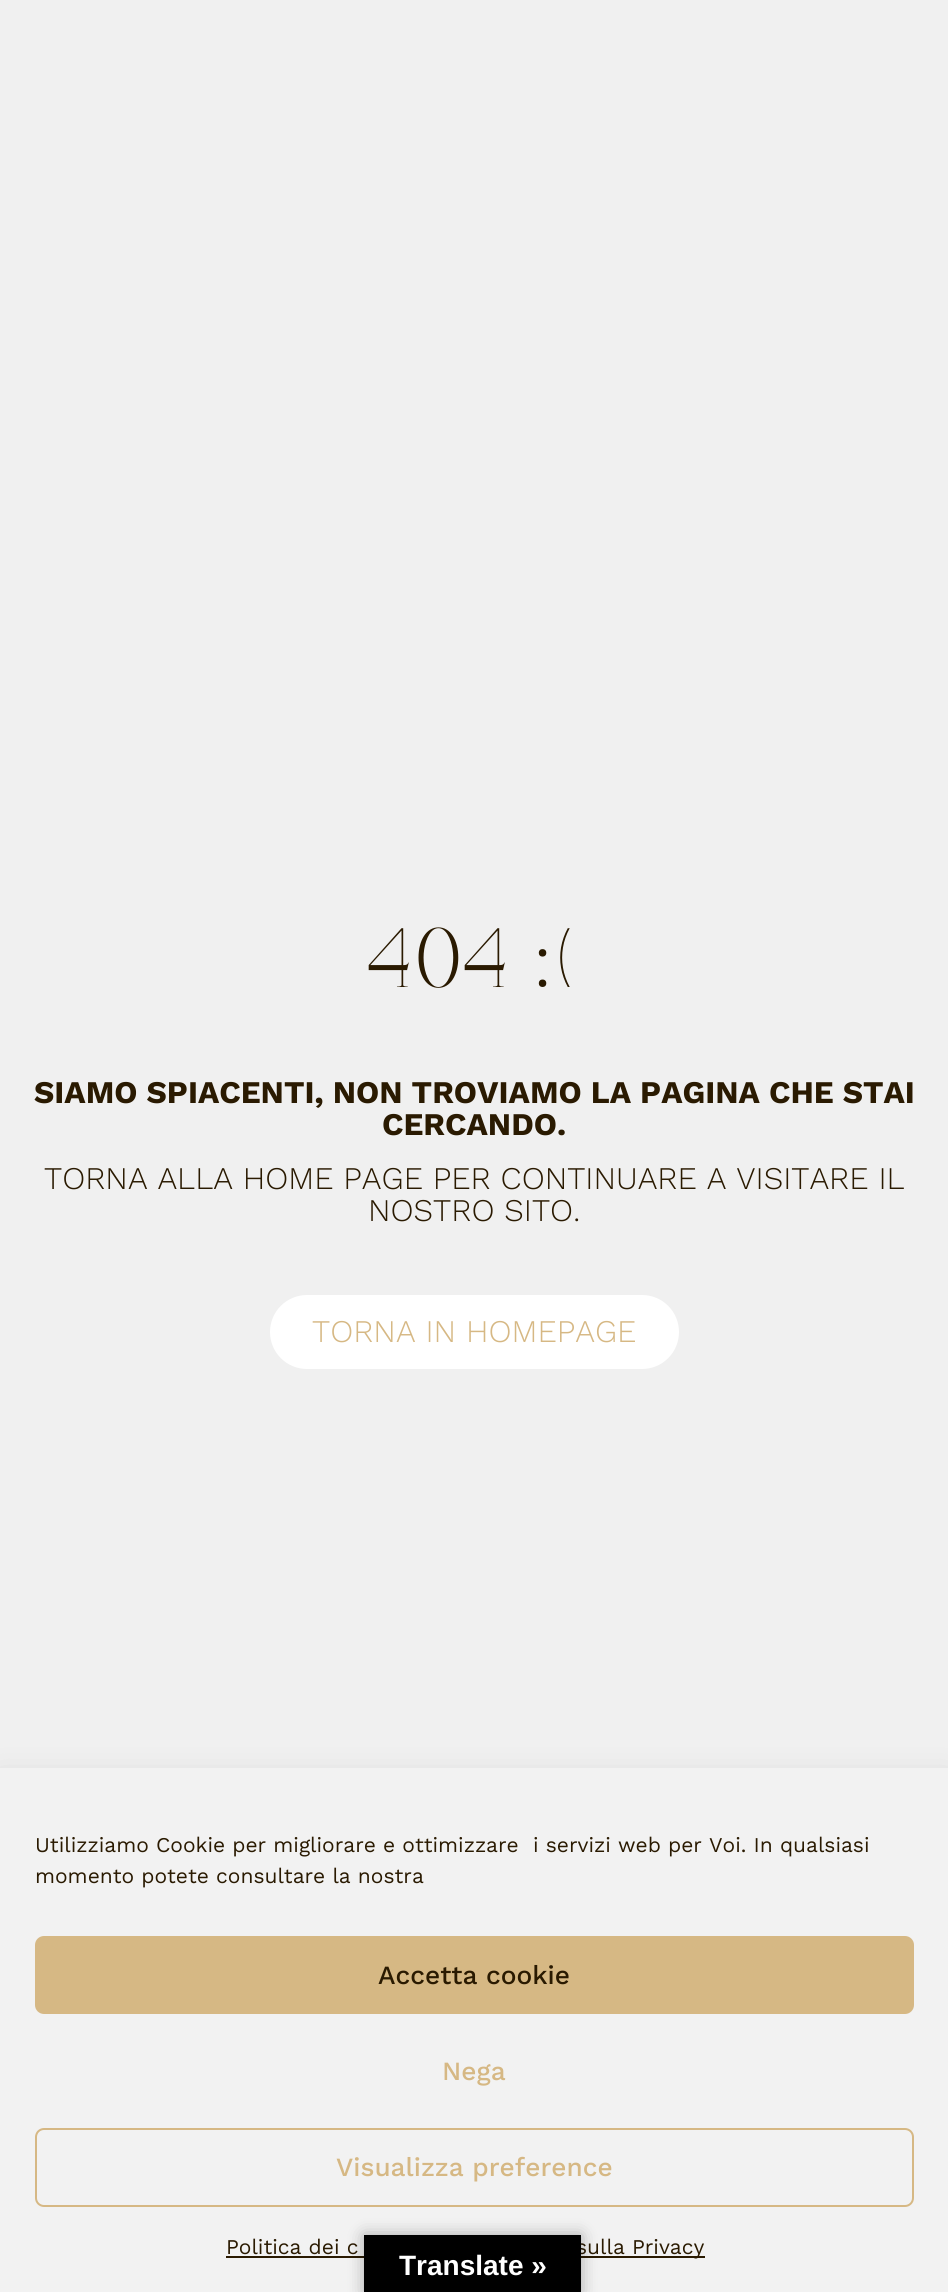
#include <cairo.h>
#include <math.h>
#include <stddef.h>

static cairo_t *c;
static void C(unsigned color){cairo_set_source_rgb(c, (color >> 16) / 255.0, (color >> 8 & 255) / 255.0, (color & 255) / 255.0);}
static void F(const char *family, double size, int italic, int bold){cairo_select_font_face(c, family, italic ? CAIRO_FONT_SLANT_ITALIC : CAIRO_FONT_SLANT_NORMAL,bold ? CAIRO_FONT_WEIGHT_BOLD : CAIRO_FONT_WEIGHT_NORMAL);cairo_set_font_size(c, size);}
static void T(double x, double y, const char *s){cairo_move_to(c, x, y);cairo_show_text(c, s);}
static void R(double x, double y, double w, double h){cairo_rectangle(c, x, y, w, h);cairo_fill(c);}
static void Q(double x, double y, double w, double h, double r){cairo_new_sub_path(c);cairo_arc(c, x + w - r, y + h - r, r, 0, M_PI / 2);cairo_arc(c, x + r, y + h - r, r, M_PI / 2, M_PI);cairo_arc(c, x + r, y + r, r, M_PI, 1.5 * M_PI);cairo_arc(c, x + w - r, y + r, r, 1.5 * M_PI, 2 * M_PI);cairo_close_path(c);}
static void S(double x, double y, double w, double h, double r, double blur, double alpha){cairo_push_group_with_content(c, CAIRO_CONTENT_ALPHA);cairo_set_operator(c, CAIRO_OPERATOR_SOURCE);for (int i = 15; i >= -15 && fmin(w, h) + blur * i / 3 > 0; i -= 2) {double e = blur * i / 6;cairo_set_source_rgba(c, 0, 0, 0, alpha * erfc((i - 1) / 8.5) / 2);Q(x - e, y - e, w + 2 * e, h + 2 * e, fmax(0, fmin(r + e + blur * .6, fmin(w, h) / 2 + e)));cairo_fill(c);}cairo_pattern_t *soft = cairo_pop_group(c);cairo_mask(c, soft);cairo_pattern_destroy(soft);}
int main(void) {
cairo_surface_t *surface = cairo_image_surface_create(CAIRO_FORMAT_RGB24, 948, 2292);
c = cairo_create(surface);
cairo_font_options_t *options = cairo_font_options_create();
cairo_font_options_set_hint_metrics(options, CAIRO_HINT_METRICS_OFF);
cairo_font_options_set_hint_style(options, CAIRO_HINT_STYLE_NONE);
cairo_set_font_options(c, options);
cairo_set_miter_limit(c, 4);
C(0xf0f0f0);
cairo_paint(c);
F("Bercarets",84,0,0);
C(0x2a1a01);
T(367,987,"404 :(");
F("Work Sans",31.5,0,1);
T(34,1103,"SIAMO SPIACENTI, NON TROVIAMO LA PAGINA CHE STAI");
T(382,1135,"CERCANDO.");
F("Work Sans Light",31.5,0,0);
T(44,1189,"TORNA ALLA HOME PAGE PER CONTINUARE A VISITARE IL");
T(368,1221,"NOSTRO SITO.");
C(0xffffff);
Q(270,1295,409,74,37);
cairo_fill(c);
C(0xd6b884);
T(312,1342,"TORNA IN HOMEPAGE");
C(0x000000);
S(0,1785,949,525,0,17.5,.19);
C(0xf2f2f2);
R(0,1768,948,524);
F("Work Sans",21,0,0);
C(0x2a1a01);
T(35,1852,"Utilizziamo Cookie per migliorare e ottimizzare  i servizi web per Voi. In qualsiasi");
T(35,1883,"momento potete consultare la nostra");
C(0xd6b884);
Q(36,1937,877,76,8);
cairo_fill_preserve(c);
cairo_stroke(c);
F("Work Sans Medium",26.25,0,0);
C(0x2a1a01);
T(378,1984,"Accetta cookie");
C(0xd6b884);
T(442,2080,"Nega");
Q(36,2129,877,77,8);
cairo_stroke(c);
T(336,2176,"Visualizza preference");
F("Work Sans",21,0,0);
C(0x2a1a01);
T(226,2254,"Politica dei c");
R(226,2256,138,2);
R(581,2256,124,2);
T(576,2254,"sulla Privacy");
C(0x000000);
S(364,2235,217,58,0,8,.3);
C(0x000000);
R(364,2235,217,57);
F("Liberation Sans",28,0,1);
C(0xffffff);
T(399,2275,"Translate »");
cairo_surface_write_to_png(surface, "o.png");
cairo_font_options_destroy(options);
cairo_destroy(c);
cairo_surface_destroy(surface);
return 0;
}
